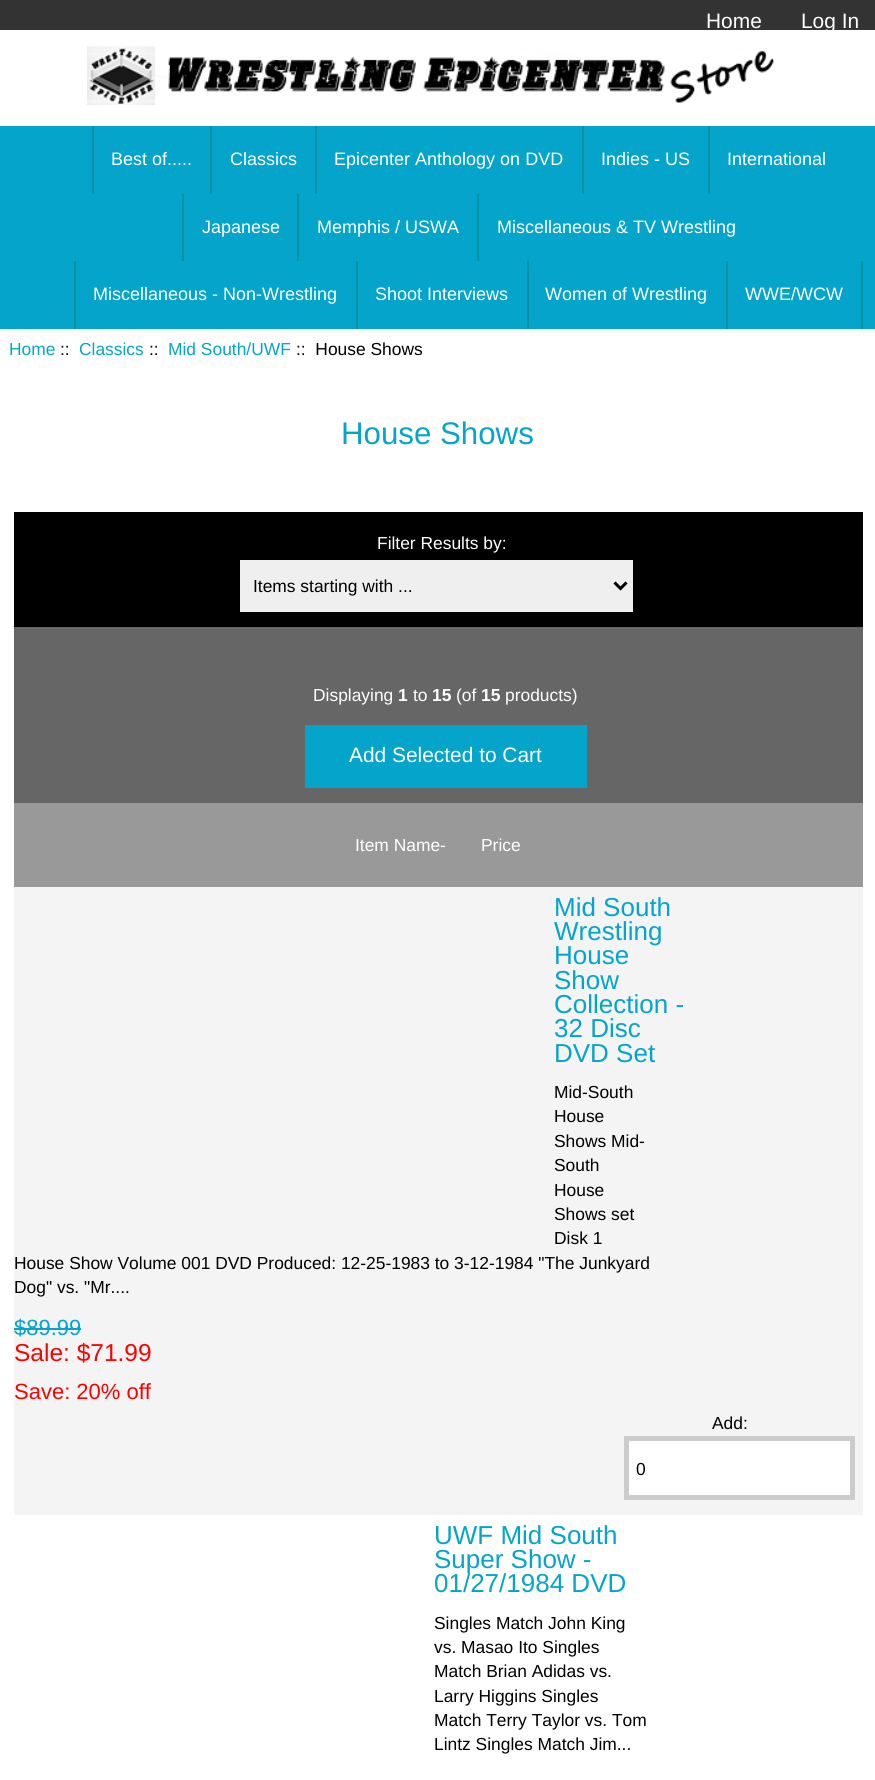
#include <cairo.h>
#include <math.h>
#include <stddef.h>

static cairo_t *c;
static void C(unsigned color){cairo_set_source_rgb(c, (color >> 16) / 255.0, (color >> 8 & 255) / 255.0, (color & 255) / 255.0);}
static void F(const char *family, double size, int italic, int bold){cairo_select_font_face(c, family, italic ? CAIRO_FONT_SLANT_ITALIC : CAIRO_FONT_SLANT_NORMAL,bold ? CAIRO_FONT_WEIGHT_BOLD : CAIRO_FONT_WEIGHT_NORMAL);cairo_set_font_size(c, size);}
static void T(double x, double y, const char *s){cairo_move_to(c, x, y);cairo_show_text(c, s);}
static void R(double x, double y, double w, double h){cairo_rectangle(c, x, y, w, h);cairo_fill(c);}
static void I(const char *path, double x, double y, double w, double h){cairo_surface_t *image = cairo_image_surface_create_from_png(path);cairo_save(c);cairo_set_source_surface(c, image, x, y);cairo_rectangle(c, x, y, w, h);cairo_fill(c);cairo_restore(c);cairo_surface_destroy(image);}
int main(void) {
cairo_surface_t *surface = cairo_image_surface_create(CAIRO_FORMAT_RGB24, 875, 1780);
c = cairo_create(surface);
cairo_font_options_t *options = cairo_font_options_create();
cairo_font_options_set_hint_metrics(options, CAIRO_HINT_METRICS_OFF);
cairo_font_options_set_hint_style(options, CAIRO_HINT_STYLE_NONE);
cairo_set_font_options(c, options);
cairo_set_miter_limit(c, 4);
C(0xffffff);
cairo_paint(c);
C(0x333333);
R(0,0,875,30);
F("Liberation Sans",20.9,0,0);
C(0xffffff);
T(706,28,"Home");
T(801,28,"Log In");
I("1.png",87,46,687,59);
C(0x05a5cb);
R(0,126,875,203);
C(0x05919f);
R(92,126,2,68);
F("Liberation Sans",18,0,0);
C(0xffffff);
T(111,165,"Best of.....");
C(0x05919f);
R(210,126,2,68);
C(0xffffff);
T(230,165,"Classics");
C(0x05919f);
R(315,126,2,68);
C(0xffffff);
T(334,165,"Epicenter Anthology on DVD");
C(0x05919f);
R(582,126,2,68);
C(0xffffff);
T(601,165,"Indies - US");
C(0x05919f);
R(708,126,2,68);
C(0xffffff);
T(727,165,"International");
C(0x05919f);
R(182,194,2,67);
C(0xffffff);
T(202,233,"Japanese");
C(0x05919f);
R(297,194,2,67);
C(0xffffff);
T(317,233,"Memphis / USWA");
C(0x05919f);
R(477,194,2,67);
C(0xffffff);
T(497,233,"Miscellaneous & TV Wrestling");
C(0x05919f);
R(74,261,2,68);
C(0xffffff);
T(93,300,"Miscellaneous - Non-Wrestling");
C(0x05919f);
R(356,261,2,68);
C(0xffffff);
T(375,300,"Shoot Interviews");
C(0x05919f);
R(527,261,2,68);
C(0xffffff);
T(545,300,"Women of Wrestling");
C(0x05919f);
R(861,261,2,68);
R(726,261,2,68);
C(0xffffff);
T(745,300,"WWE/WCW");
F("Liberation Sans",17.4,0,0);
C(0x05a5cb);
T(9,355,"Home");
C(0x000000);
T(60,355,"::");
C(0x05a5cb);
T(79,355,"Classics");
C(0x000000);
T(149,355,"::");
C(0x05a5cb);
T(168,355,"Mid South/UWF");
C(0x000000);
T(296,355,"::  House Shows");
F("Liberation Sans",31.25,0,0);
C(0x05a5cb);
T(341,444,"House Shows");
C(0x000000);
R(14,512,849,115);
F("Liberation Sans",17.4,0,0);
C(0xffffff);
T(377,549,"Filter Results by:");
C(0xefefef);
R(240,560,393,52);
cairo_new_path(c);
cairo_move_to(c,614.5,582.5);
cairo_line_to(c,620.5,588.5);
cairo_line_to(c,626.5,582.5);
C(0x000000);
cairo_set_line_width(c,3);
cairo_stroke(c);
T(253,592,"Items starting with ...");
C(0x666666);
R(14,627,849,176);
C(0xffffff);
T(313,701,"Displaying");
F("Liberation Sans",17.4,0,1);
T(398,701,"1");
F("Liberation Sans",17.4,0,0);
T(413,701,"to");
F("Liberation Sans",17.4,0,1);
T(432,701,"15");
F("Liberation Sans",17.4,0,0);
T(456,701,"(of");
F("Liberation Sans",17.4,0,1);
T(481,701,"15");
F("Liberation Sans",17.4,0,0);
T(505,701,"products)");
C(0x05a5cb);
R(305,725,282,63);
F("Liberation Sans",20.9,0,0);
C(0xffffff);
T(349,762,"Add Selected to Cart");
C(0x999999);
R(14,803,849,84);
F("Liberation Sans",17.4,0,0);
C(0xffffff);
T(355,851,"Item Name-");
T(481,851,"Price");
C(0xf4f4f4);
R(14,887,849,628);
F("Liberation Sans",26,0,0);
C(0x05a5cb);
T(554,916,"Mid South");
T(554,940,"Wrestling");
T(554,964,"House");
T(554,989,"Show");
T(554,1013,"Collection -");
T(554,1037,"32 Disc");
T(554,1062,"DVD Set");
F("Liberation Sans",17.4,0,0);
C(0x000000);
T(554,1098,"Mid-South");
T(554,1122,"House");
T(554,1147,"Shows Mid-");
T(554,1171,"South");
T(554,1196,"House");
T(554,1220,"Shows set");
T(554,1244,"Disk 1");
T(14,1269,"House Show Volume 001 DVD Produced: 12-25-1983 to 3-12-1984 \"The Junkyard");
T(14,1293,"Dog\" vs. \"Mr....");
F("Liberation Sans",22,0,0);
C(0x05a5cb);
T(14,1335,"$89.99");
R(14,1328,67,2);
F("Liberation Sans",24.5,0,0);
C(0xff0000);
T(14,1361,"Sale: $71.99");
F("Liberation Sans",22,0,0);
T(14,1399,"Save: 20% off");
F("Liberation Sans",17.4,0,0);
C(0x000000);
T(712,1429,"Add:");
C(0xffffff);
cairo_rectangle(c,626.5,1438.5,226,59);
cairo_fill_preserve(c);
C(0xcccccc);
cairo_set_line_width(c,5);
cairo_stroke(c);
C(0x000000);
T(636,1475,"0");
F("Liberation Sans",26,0,0);
C(0x05a5cb);
T(434,1544,"UWF Mid South");
T(434,1568,"Super Show -");
T(434,1592,"01/27/1984 DVD");
F("Liberation Sans",17.4,0,0);
C(0x000000);
T(434,1629,"Singles Match John King");
T(434,1653,"vs. Masao Ito Singles");
T(434,1677,"Match Brian Adidas vs.");
T(434,1702,"Larry Higgins Singles");
T(434,1726,"Match Terry Taylor vs. Tom");
T(434,1750,"Lintz Singles Match Jim...");
cairo_surface_write_to_png(surface, "o.png");
cairo_font_options_destroy(options);
cairo_destroy(c);
cairo_surface_destroy(surface);
return 0;
}
